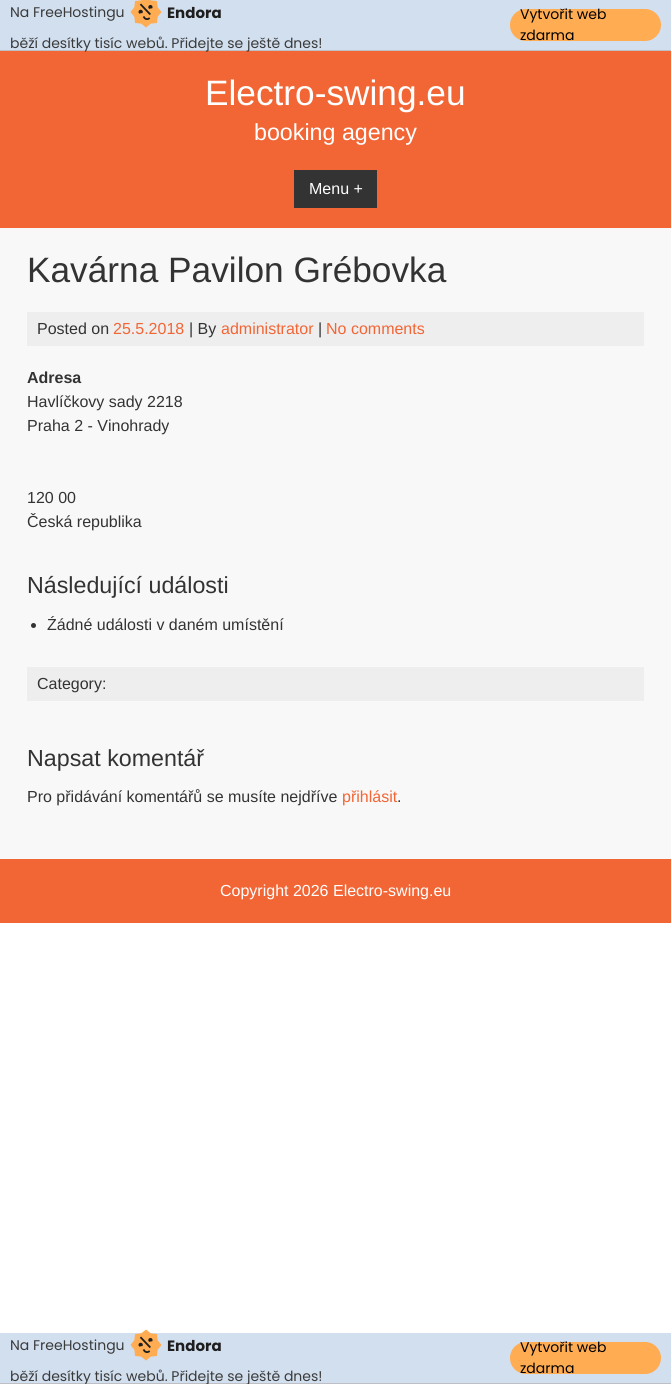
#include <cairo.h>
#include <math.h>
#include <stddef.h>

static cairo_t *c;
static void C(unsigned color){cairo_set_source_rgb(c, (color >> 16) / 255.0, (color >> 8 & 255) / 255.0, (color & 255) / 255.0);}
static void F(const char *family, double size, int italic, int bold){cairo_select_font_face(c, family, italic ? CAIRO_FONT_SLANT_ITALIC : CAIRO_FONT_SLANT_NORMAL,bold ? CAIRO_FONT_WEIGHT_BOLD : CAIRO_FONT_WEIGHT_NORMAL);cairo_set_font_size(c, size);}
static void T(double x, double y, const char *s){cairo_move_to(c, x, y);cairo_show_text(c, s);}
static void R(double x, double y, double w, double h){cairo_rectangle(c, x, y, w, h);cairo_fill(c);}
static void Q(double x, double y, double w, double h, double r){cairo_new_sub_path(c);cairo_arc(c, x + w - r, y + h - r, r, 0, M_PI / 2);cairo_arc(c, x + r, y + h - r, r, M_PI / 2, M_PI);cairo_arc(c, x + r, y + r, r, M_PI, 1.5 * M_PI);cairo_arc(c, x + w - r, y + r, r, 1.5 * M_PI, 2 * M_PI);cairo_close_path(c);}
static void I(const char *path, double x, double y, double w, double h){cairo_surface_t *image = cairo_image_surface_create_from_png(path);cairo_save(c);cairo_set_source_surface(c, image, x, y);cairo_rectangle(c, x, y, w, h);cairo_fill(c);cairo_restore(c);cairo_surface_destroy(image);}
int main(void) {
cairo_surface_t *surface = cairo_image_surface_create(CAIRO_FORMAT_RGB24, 671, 1384);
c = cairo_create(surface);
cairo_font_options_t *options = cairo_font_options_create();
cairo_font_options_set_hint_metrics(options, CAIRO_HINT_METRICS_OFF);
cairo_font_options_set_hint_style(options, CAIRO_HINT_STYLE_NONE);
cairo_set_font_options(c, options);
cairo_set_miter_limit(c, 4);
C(0xffffff);
cairo_paint(c);
C(0xd2dfef);
R(0,0,671,50);
C(0xbebfc4);
R(0,50,671,1);
F("Poppins",14,0,0);
C(0x3a3a3a);
T(10,17,"Na FreeHostingu");
I("1.png",130,0,32,28);
F("Poppins",15,0,1);
C(0x1e1e1e);
T(167,18,"Endora");
C(0xf26535);
R(0,51,671,177);
F("Poppins",14,0,0);
C(0x3a3a3a);
T(10,48,"běží desítky tisíc webů. Přidejte se ještě dnes!");
C(0xffac52);
Q(510,9,151,32,16);
cairo_fill(c);
C(0x000000);
T(520,19,"Vytvořit web");
T(520,40,"zdarma");
F("Liberation Sans",35.25,0,0);
C(0xffffff);
T(205,105,"Electro-swing.eu");
F("Liberation Sans",23.25,0,0);
T(254,140,"booking agency");
C(0x333333);
R(294,170,83,38);
F("Liberation Sans",16,0,0);
C(0xffffff);
T(309,194,"Menu +");
C(0xf8f8f8);
R(0,228,671,631);
F("Liberation Sans",35.25,0,0);
C(0x333333);
T(27,282,"Kavárna Pavilon Grébovka");
C(0xeeeeee);
R(27,312,617,34);
F("Liberation Sans",16,0,0);
C(0x333333);
T(37,334,"Posted on");
C(0xf26535);
T(113,334,"25.5.2018");
C(0x333333);
T(189,334,"| By");
C(0xf26535);
T(221,334,"administrator");
C(0x333333);
T(318,334,"|");
C(0xf26535);
T(326,334,"No comments");
F("Liberation Sans",16,0,1);
C(0x333333);
T(27,383,"Adresa");
F("Liberation Sans",16,0,0);
T(27,407,"Havlíčkovy sady 2218");
T(27,431,"Praha 2 - Vinohrady");
T(27,503,"120 00");
T(27,527,"Česká republika");
F("Liberation Sans",23.25,0,0);
T(27,593,"Následující události");
cairo_new_path(c);
cairo_arc(c,33.5,625.5,2.5,0,2 * M_PI);
cairo_fill(c);
F("Liberation Sans",16,0,0);
T(47,630,"Źádné události v daném umístění");
C(0xeeeeee);
R(27,667,617,34);
C(0x333333);
T(37,689,"Category:");
F("Liberation Sans",23.25,0,0);
T(27,766,"Napsat komentář");
F("Liberation Sans",16,0,0);
T(27,802,"Pro přidávání komentářů se musíte nejdříve");
C(0xf26535);
T(342,802,"přihlásit");
C(0x333333);
T(397,802,".");
C(0xf26535);
R(0,859,671,64);
C(0xffffff);
T(220,896,"Copyright 2026 Electro-swing.eu");
C(0xd2dfef);
R(0,1333,671,50);
C(0xbebfc4);
R(0,1383,671,1);
F("Poppins",14,0,0);
C(0x3a3a3a);
T(10,1350,"Na FreeHostingu");
I("2.png",130,1329,32,32);
F("Poppins",15,0,1);
C(0x1e1e1e);
T(167,1351,"Endora");
F("Poppins",14,0,0);
C(0x3a3a3a);
T(10,1381,"běží desítky tisíc webů. Přidejte se ještě dnes!");
C(0xffac52);
Q(510,1342,151,32,16);
cairo_fill(c);
C(0x000000);
T(520,1352,"Vytvořit web");
T(520,1373,"zdarma");
cairo_surface_write_to_png(surface, "o.png");
cairo_font_options_destroy(options);
cairo_destroy(c);
cairo_surface_destroy(surface);
return 0;
}
